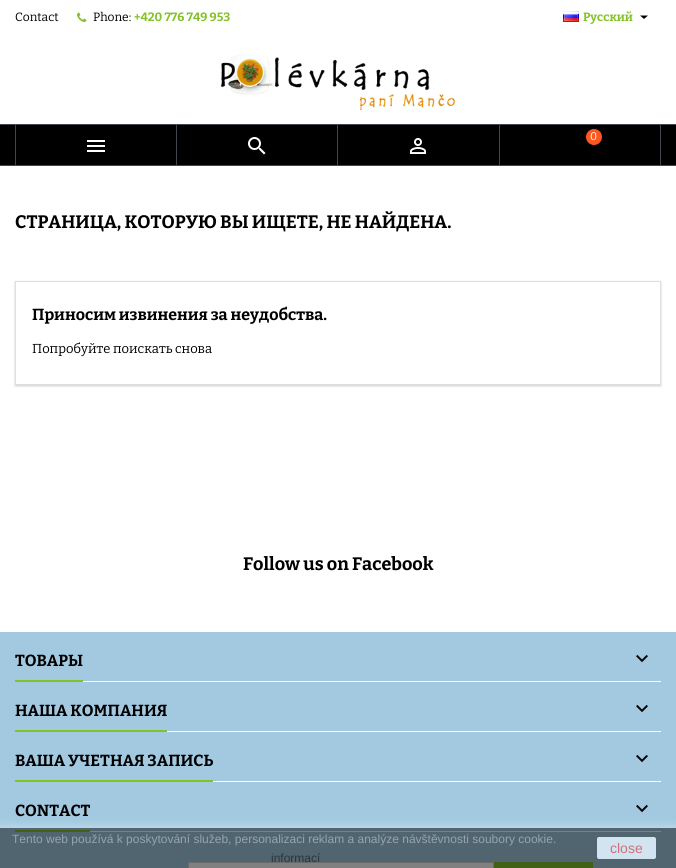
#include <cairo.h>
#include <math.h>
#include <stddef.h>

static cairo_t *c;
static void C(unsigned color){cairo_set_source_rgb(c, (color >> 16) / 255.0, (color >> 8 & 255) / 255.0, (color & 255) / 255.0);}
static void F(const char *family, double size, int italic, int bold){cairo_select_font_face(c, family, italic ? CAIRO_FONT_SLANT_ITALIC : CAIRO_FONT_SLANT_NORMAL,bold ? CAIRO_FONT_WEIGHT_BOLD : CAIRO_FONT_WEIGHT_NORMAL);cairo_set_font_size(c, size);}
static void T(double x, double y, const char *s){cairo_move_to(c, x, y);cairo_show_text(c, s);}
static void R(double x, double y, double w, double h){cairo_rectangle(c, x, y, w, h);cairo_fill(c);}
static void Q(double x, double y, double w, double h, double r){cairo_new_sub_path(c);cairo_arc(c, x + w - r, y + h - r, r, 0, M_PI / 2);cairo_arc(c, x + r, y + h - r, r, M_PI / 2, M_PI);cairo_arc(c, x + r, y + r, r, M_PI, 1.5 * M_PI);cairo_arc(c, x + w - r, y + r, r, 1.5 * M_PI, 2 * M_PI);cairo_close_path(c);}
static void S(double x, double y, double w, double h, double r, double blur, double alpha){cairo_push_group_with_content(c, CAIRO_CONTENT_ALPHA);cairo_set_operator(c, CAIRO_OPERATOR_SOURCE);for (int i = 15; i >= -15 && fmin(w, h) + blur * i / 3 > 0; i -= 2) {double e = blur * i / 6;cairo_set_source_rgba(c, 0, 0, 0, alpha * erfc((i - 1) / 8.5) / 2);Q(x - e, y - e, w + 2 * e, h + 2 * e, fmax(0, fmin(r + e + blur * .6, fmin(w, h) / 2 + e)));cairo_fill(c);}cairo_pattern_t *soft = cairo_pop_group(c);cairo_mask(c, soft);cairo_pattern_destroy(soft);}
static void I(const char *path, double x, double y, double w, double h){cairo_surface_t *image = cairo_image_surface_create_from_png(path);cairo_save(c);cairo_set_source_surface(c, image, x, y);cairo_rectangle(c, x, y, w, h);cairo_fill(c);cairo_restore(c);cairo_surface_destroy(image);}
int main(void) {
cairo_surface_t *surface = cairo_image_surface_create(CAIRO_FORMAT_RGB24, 676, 868);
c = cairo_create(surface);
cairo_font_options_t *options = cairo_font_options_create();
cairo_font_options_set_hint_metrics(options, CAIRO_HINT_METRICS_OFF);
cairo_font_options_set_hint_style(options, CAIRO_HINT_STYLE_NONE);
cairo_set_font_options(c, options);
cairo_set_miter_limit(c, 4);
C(0xffffff);
cairo_paint(c);
F("Bitter",12,0,0);
C(0x000000);
T(15,21,"Contact");
I("1.png",77,12,10,10);
T(93,21,"Phone:");
F("Bitter",12,0,1);
C(0x83c127);
T(134,21,"+420 776 749 953");
I("2.png",563,11,16,11);
T(583,21,"Русский");
C(0x000000);
cairo_new_path(c);
cairo_move_to(c,640,15.5);
cairo_line_to(c,648,15.5);
cairo_line_to(c,644,19);
cairo_close_path(c);
cairo_fill(c);
I("3.png",220,54,236,56);
R(0,125,676,40);
C(0x424552);
R(0,124,676,1);
R(0,165,676,1);
R(176,125,1,40);
R(15,125,1,40);
I("4.png",87,140,18,12);
R(337,125,1,40);
I("5.png",248,137,18,18);
R(499,125,1,40);
I("6.png",410,138,16,16);
R(660,125,1,40);
C(0xff5722);
cairo_arc(c,594,137,8,0,2 * M_PI);
cairo_fill(c);
F("Bitter",11,0,0);
C(0xffffff);
T(590,140,"0");
F("Bitter",18,0,1);
C(0x000000);
T(15,228,"СТРАНИЦА, КОТОРУЮ ВЫ ИЩЕТЕ, НЕ НАЙДЕНА.");
cairo_save(c);
cairo_set_fill_rule(c,CAIRO_FILL_RULE_EVEN_ODD);
cairo_new_path(c);
cairo_move_to(c,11,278);
cairo_line_to(c,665,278);
cairo_line_to(c,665,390);
cairo_line_to(c,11,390);
cairo_close_path(c);
cairo_move_to(c,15,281);
cairo_line_to(c,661,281);
cairo_line_to(c,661,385);
cairo_line_to(c,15,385);
cairo_close_path(c);
cairo_clip(c);
C(0x000000);
S(15,282,646,104,0,1,.2);
cairo_restore(c);
cairo_rectangle(c,15.5,281.5,645,103);
C(0xdfdfdf);
cairo_set_line_width(c,1);
cairo_stroke(c);
F("Bitter",16,0,1);
C(0x000000);
T(32,320,"Приносим извинения за неудобства.");
F("Bitter",13,0,0);
T(32,353,"Попробуйте поискать снова");
F("Bitter",18,0,1);
T(243,570,"Follow us on Facebook");
C(0xa2c9e0);
R(0,632,676,196);
C(0x516570);
R(0,828,676,40);
C(0xffffff);
R(83,681,578,1);
C(0x83c127);
R(15,680,68,2);
F("Bitter",16,0,1);
C(0x000000);
T(15,666,"ТОВАРЫ");
I("7.png",636,654,12,9);
C(0xffffff);
R(167,731,494,1);
C(0x83c127);
R(15,730,152,2);
C(0x000000);
T(15,716,"НАША КОМПАНИЯ");
I("7.png",636,704,12,9);
C(0xffffff);
R(213,781,448,1);
C(0x83c127);
R(15,780,198,2);
C(0x000000);
T(15,766,"ВАША УЧЕТНАЯ ЗАПИСЬ");
I("7.png",636,754,12,9);
C(0x808080);
R(90,831,571,1);
C(0x426114);
R(15,830,75,2);
C(0x000000);
T(15,816,"CONTACT");
I("7.png",636,804,12,9);
C(0x808080);
cairo_rectangle(c,188.5,862.5,305,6);
cairo_fill_preserve(c);
C(0x6b6a6a);
cairo_stroke(c);
C(0x426114);
R(494,862,99,6);
cairo_save(c);
cairo_rectangle(c,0,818,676,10);
cairo_clip(c);
C(0xd1e4f0);
S(0,828,676,40,0,5,1);
cairo_restore(c);
F("Liberation Sans",12,0,0);
C(0x91a5b0);
T(12,843,"Tento web používá k poskytování služeb, personalizaci reklam a analýze návštěvnosti soubory cookie.");
C(0x2b353a);
T(271,862,"informací");
C(0xd1e4f0);
Q(597,837,59,22,2);
cairo_fill(c);
F("Liberation Sans",14,0,0);
C(0xd17078);
T(610,853,"close");
cairo_surface_write_to_png(surface, "o.png");
cairo_font_options_destroy(options);
cairo_destroy(c);
cairo_surface_destroy(surface);
return 0;
}
